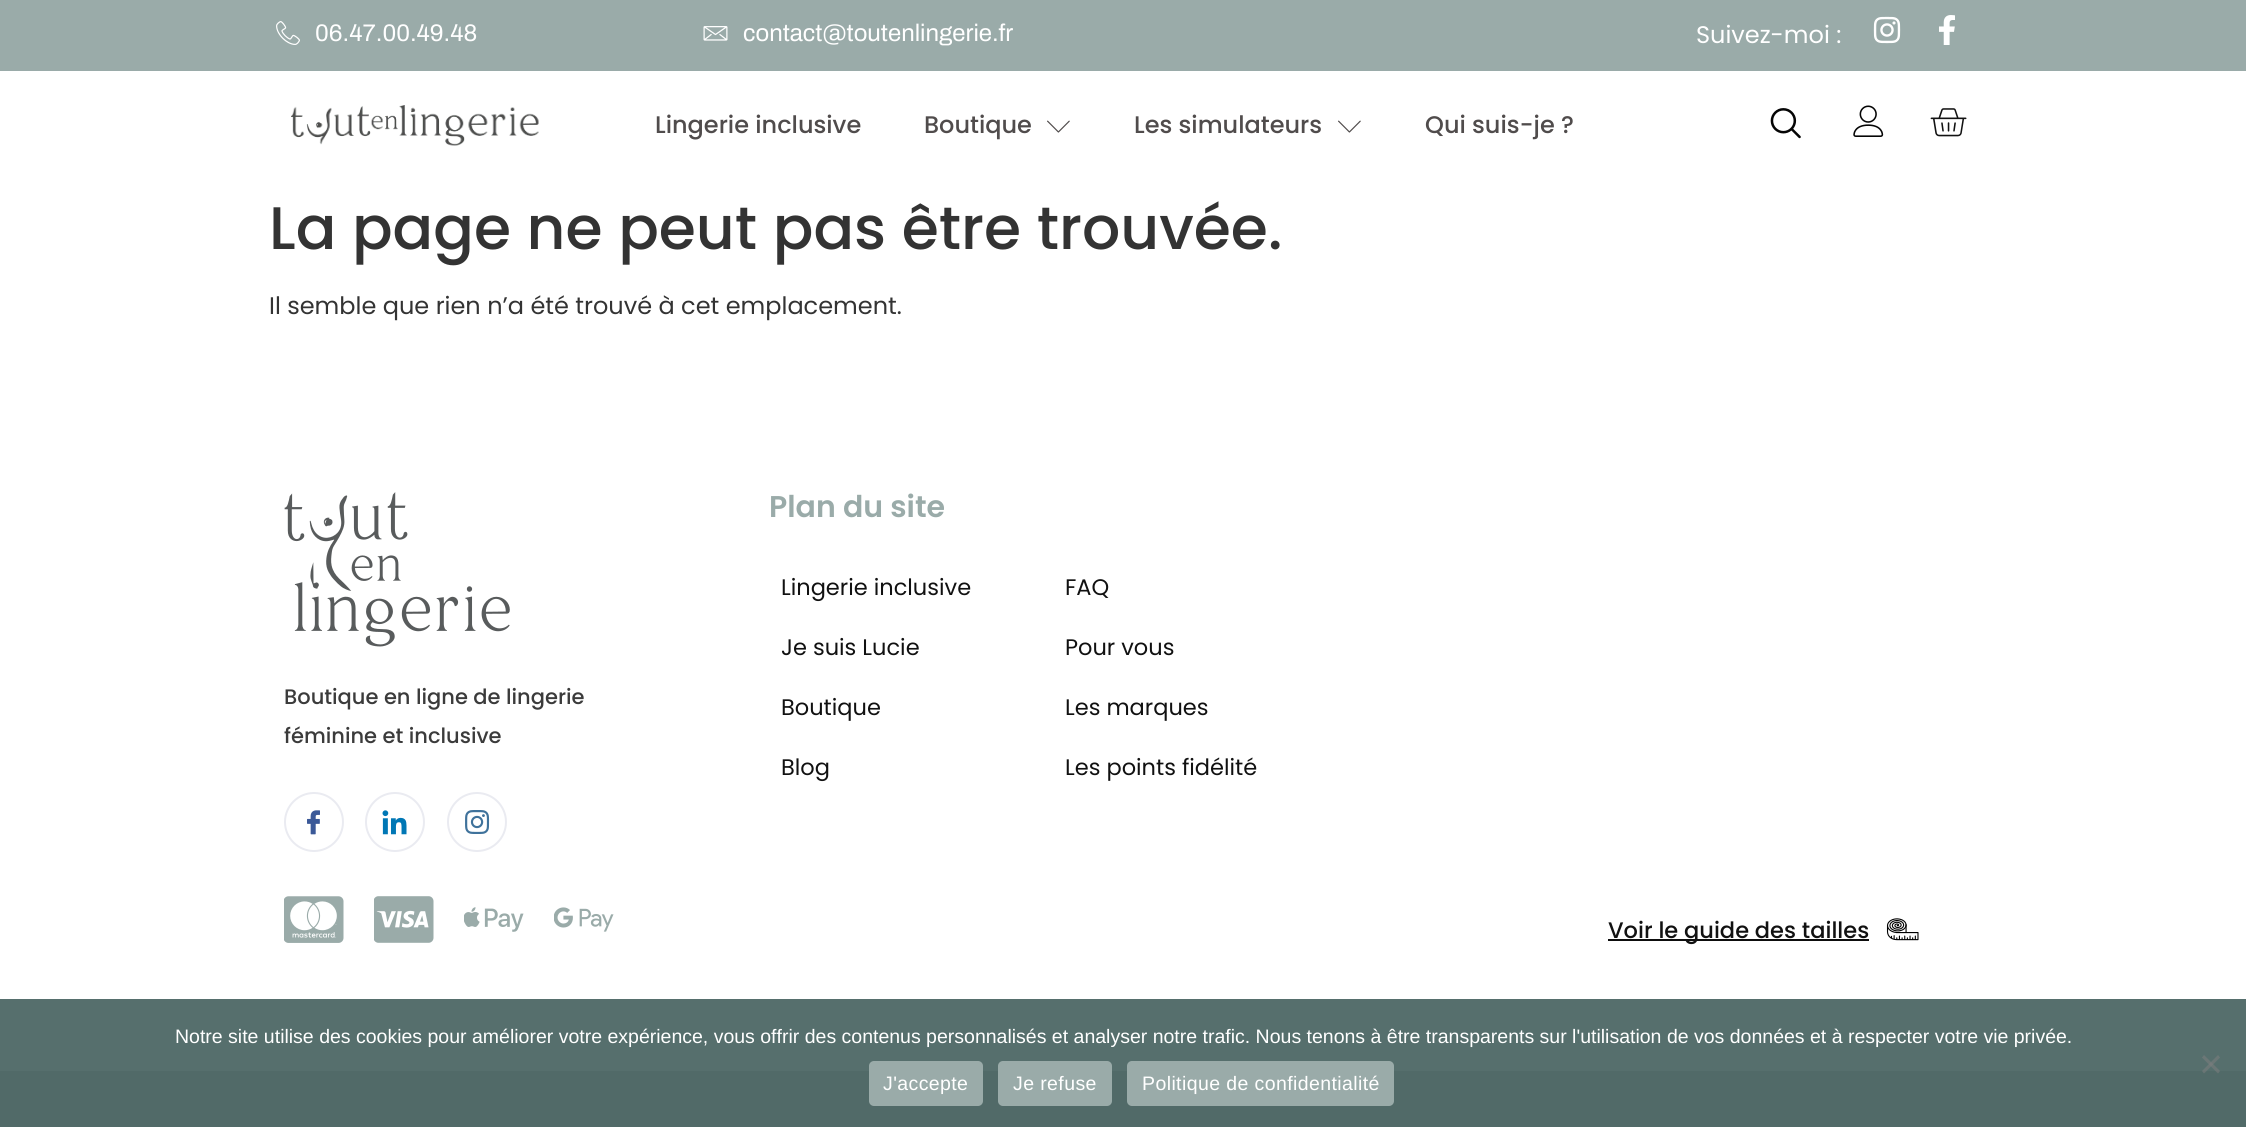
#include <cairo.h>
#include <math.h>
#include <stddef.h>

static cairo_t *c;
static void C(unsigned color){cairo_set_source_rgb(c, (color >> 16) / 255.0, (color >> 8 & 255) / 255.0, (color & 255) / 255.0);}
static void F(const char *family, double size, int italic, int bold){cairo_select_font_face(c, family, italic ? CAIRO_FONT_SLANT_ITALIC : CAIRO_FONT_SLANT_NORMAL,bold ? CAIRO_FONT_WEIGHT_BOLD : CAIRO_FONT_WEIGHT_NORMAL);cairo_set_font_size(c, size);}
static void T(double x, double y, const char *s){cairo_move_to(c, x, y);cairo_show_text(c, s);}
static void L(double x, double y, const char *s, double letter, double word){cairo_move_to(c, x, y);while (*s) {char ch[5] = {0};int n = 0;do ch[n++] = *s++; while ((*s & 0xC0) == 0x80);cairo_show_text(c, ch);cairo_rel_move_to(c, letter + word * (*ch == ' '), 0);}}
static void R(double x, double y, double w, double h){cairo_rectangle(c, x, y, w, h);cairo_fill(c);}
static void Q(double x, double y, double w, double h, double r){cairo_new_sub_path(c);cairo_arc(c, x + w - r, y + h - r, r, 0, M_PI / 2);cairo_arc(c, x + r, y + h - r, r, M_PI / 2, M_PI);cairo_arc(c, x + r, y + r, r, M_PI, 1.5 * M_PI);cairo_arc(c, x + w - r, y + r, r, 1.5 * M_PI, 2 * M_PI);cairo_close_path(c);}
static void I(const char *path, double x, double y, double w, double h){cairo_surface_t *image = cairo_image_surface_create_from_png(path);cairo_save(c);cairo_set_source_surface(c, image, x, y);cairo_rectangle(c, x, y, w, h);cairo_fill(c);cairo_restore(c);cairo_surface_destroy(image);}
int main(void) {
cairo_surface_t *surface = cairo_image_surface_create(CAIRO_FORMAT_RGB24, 2246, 1127);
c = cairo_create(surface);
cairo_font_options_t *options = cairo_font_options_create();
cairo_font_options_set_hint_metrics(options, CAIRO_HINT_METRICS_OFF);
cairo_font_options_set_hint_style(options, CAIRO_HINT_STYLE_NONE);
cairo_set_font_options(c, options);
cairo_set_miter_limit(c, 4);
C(0xffffff);
cairo_paint(c);
C(0x566f6d);
R(0,999,2246,72);
C(0x9aaba9);
R(0,0,2246,71);
I("1.png",276,21,24,24);
F("Archivo",24,0,0);
C(0xffffff);
T(315,41,"06.47.00.49.48");
I("2.png",703,26,25,15);
T(743,41,"contact@toutenlingerie.fr");
F("Poppins",24,0,0);
T(1696,43,"Suivez-moi :");
I("3.png",1873,16,28,28);
I("4.png",1939,15,16,30);
I("5.png",291,105,248,41);
F("Poppins Medium",24,0,0);
C(0x504c4c);
T(655,133,"Lingerie inclusive");
T(924,133,"Boutique");
I("6.png",1047,120,23,13);
T(1134,133,"Les simulateurs");
I("6.png",1338,120,23,13);
T(1425,133,"Qui suis-je ?");
I("7.png",1770,108,31,31);
I("8.png",1853,105,31,32);
I("9.png",1930,108,37,29);
F("Poppins Medium",60,0,0);
C(0x333333);
T(269,249,"La page ne peut pas être trouvée.");
F("Poppins",24,0,0);
T(269,314,"Il semble que rien n’a été trouvé à cet emplacement.");
I("10.png",284,492,226,155);
F("Poppins Medium",21,0,0);
C(0x3b3b3b);
T(284,704,"Boutique en ligne de lingerie");
T(284,743,"féminine et inclusive");
cairo_new_path(c);
cairo_arc(c,314,822,29,0,2 * M_PI);
C(0xeaebf1);
cairo_stroke(c);
I("11.png",307,810,13,25);
cairo_arc(c,395,822,29,0,2 * M_PI);
cairo_stroke(c);
I("12.png",382,810,25,25);
cairo_arc(c,477,822,29,0,2 * M_PI);
cairo_stroke(c);
I("13.png",465,810,25,24);
I("14.png",284,896,60,47);
I("15.png",374,896,60,47);
I("16.png",464,907,60,25);
I("17.png",554,907,60,25);
F("Poppins SemiBold",30,0,0);
C(0x9aaba9);
T(769,517,"Plan du site");
F("Poppins",22.5,0,0);
C(0x111111);
T(781,595,"Lingerie inclusive");
T(781,655,"Je suis Lucie");
T(781,715,"Boutique");
T(781,775,"Blog");
T(1065,595,"FAQ");
T(1065,655,"Pour vous");
T(1065,715,"Les marques");
T(1065,775,"Les points fidélité");
C(0x0d0d0d);
R(1608,939,261,2);
F("Poppins Medium",22.5,0,0);
C(0x111111);
T(1608,938,"Voir le guide des tailles");
I("18.png",1886,918,33,23);
C(0x516a68);
R(0,1071,2246,56);
F("Liberation Sans",19.5,0,0);
C(0xffffff);
T(175,1043,"Notre site utilise des cookies pour améliorer votre expérience, vous offrir des contenus personnalisés et analyser notre trafic. Nous tenons à être transparents sur l'utilisation de vos données et à respecter votre vie privée.");
cairo_set_source_rgba(c,0.502,0.502,0.502,0.5);
cairo_new_path(c);
cairo_move_to(c,2218,1055);
cairo_line_to(c,2220,1057.5);
cairo_line_to(c,2204,1073.5);
cairo_line_to(c,2202,1071);
cairo_close_path(c);
cairo_fill(c);
cairo_new_path(c);
cairo_move_to(c,2202,1057.5);
cairo_line_to(c,2204,1055);
cairo_line_to(c,2220,1071);
cairo_line_to(c,2218,1073.5);
cairo_close_path(c);
cairo_fill(c);
C(0x9aaba9);
Q(869,1061,114,45,5);
cairo_fill(c);
C(0xffffff);
L(883,1090,"J'accepte",.4,0);
C(0x9aaba9);
Q(998,1061,114,45,5);
cairo_fill(c);
C(0xffffff);
L(1013,1090,"Je refuse",.4,0);
C(0x9aaba9);
Q(1127,1061,267,45,5);
cairo_fill(c);
C(0xffffff);
L(1142,1090,"Politique de confidentialité",.4,0);
cairo_surface_write_to_png(surface, "o.png");
cairo_font_options_destroy(options);
cairo_destroy(c);
cairo_surface_destroy(surface);
return 0;
}
